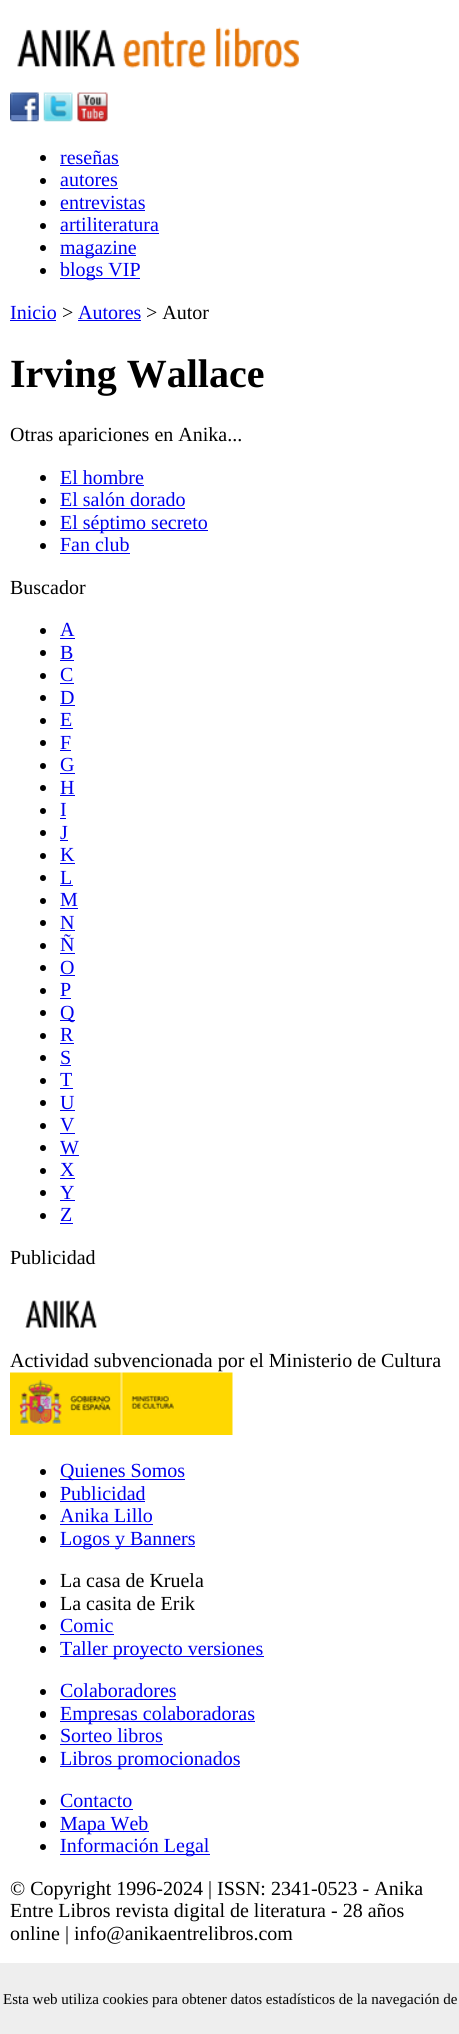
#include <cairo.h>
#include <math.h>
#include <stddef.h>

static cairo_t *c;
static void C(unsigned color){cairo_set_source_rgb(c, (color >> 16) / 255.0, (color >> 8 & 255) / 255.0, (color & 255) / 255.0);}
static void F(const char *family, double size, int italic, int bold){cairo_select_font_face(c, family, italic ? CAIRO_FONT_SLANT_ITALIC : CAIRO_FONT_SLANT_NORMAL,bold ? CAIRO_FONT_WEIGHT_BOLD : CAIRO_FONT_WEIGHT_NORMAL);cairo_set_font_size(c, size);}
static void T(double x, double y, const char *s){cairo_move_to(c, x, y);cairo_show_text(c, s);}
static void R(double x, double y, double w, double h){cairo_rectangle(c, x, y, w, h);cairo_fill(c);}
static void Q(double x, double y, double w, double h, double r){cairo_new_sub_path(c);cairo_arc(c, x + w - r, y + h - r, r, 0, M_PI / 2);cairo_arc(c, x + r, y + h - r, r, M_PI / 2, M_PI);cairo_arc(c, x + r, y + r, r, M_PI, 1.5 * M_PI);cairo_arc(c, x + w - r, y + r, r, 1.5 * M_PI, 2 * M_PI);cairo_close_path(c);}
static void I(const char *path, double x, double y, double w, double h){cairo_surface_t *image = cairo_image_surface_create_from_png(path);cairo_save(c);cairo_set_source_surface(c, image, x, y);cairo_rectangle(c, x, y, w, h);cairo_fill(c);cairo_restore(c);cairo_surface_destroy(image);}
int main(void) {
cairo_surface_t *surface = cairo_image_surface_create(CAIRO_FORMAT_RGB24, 459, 2034);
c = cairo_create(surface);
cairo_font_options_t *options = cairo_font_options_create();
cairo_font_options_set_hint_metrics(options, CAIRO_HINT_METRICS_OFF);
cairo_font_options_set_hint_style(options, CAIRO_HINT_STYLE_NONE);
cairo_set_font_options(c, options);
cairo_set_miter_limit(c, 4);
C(0xffffff);
cairo_paint(c);
I("1.png",17,27,282,41);
I("2.png",10,92,29,30);
I("3.png",43,92,30,30);
I("4.png",77,92,31,30);
C(0x000000);
cairo_arc(c,43,158,3,0,2 * M_PI);
cairo_fill(c);
F("Liberation Serif",20,0,0);
C(0x0000ee);
T(60,164,"reseñas");
R(60,165,59,1);
C(0x000000);
cairo_new_path(c);
cairo_arc(c,43,181,3,0,2 * M_PI);
cairo_fill(c);
C(0x0000ee);
T(60,186,"autores");
R(60,188,58,1);
C(0x000000);
cairo_new_path(c);
cairo_arc(c,43,203,3,0,2 * M_PI);
cairo_fill(c);
C(0x0000ee);
T(60,209,"entrevistas");
R(60,210,85,1);
C(0x000000);
cairo_new_path(c);
cairo_arc(c,43,226,3,0,2 * M_PI);
cairo_fill(c);
C(0x0000ee);
T(60,231,"artiliteratura");
R(60,233,99,1);
C(0x000000);
cairo_new_path(c);
cairo_arc(c,43,248,3,0,2 * M_PI);
cairo_fill(c);
C(0x0000ee);
R(60,255,76,1);
T(60,254,"magazine");
C(0x000000);
cairo_new_path(c);
cairo_arc(c,43,271,3,0,2 * M_PI);
cairo_fill(c);
C(0x0000ee);
R(60,278,80,1);
T(60,276,"blogs VIP");
T(10,319,"Inicio");
R(10,320,46,1);
C(0x000000);
T(62,319,">");
C(0x0000ee);
T(78,319,"Autores");
R(78,320,63,1);
C(0x000000);
T(146,319,"> Autor");
F("Liberation Serif",40,0,1);
T(10,387,"Irving Wallace");
F("Liberation Serif",20,0,0);
T(10,441,"Otras apariciones en Anika...");
cairo_new_path(c);
cairo_arc(c,43,478,3,0,2 * M_PI);
cairo_fill(c);
C(0x0000ee);
T(60,484,"El hombre");
R(60,485,84,1);
C(0x000000);
cairo_new_path(c);
cairo_arc(c,43,501,3,0,2 * M_PI);
cairo_fill(c);
C(0x0000ee);
T(60,506,"El salón dorado");
R(60,508,125,1);
C(0x000000);
cairo_new_path(c);
cairo_arc(c,43,523,3,0,2 * M_PI);
cairo_fill(c);
C(0x0000ee);
R(60,530,148,1);
T(60,529,"El séptimo secreto");
C(0x000000);
cairo_new_path(c);
cairo_arc(c,43,546,3,0,2 * M_PI);
cairo_fill(c);
C(0x0000ee);
T(60,551,"Fan club");
R(60,553,70,1);
C(0x000000);
T(10,594,"Buscador");
cairo_new_path(c);
cairo_arc(c,43,631,3,0,2 * M_PI);
cairo_fill(c);
C(0x0000ee);
T(60,636,"A");
R(60,638,15,1);
C(0x000000);
cairo_new_path(c);
cairo_arc(c,43,653,3,0,2 * M_PI);
cairo_fill(c);
C(0x0000ee);
T(60,659,"B");
R(60,660,14,1);
C(0x000000);
cairo_new_path(c);
cairo_arc(c,43,676,3,0,2 * M_PI);
cairo_fill(c);
C(0x0000ee);
T(60,681,"C");
R(60,683,14,1);
C(0x000000);
cairo_new_path(c);
cairo_arc(c,43,698,3,0,2 * M_PI);
cairo_fill(c);
C(0x0000ee);
T(60,704,"D");
R(60,705,15,1);
C(0x000000);
cairo_new_path(c);
cairo_arc(c,43,721,3,0,2 * M_PI);
cairo_fill(c);
C(0x0000ee);
T(60,726,"E");
R(60,728,13,1);
C(0x000000);
cairo_new_path(c);
cairo_arc(c,43,743,3,0,2 * M_PI);
cairo_fill(c);
C(0x0000ee);
T(60,749,"F");
R(60,750,11,1);
C(0x000000);
cairo_new_path(c);
cairo_arc(c,43,766,3,0,2 * M_PI);
cairo_fill(c);
C(0x0000ee);
T(60,771,"G");
R(60,773,15,1);
C(0x000000);
cairo_new_path(c);
cairo_arc(c,43,788,3,0,2 * M_PI);
cairo_fill(c);
C(0x0000ee);
T(60,794,"H");
R(60,795,15,1);
C(0x000000);
cairo_new_path(c);
cairo_arc(c,43,811,3,0,2 * M_PI);
cairo_fill(c);
C(0x0000ee);
T(60,816,"I");
R(60,818,6,1);
C(0x000000);
cairo_new_path(c);
cairo_arc(c,43,833,3,0,2 * M_PI);
cairo_fill(c);
C(0x0000ee);
T(60,839,"J");
R(60,840,8,1);
C(0x000000);
cairo_new_path(c);
cairo_arc(c,43,856,3,0,2 * M_PI);
cairo_fill(c);
C(0x0000ee);
T(60,861,"K");
R(60,863,15,1);
C(0x000000);
cairo_new_path(c);
cairo_arc(c,43,878,3,0,2 * M_PI);
cairo_fill(c);
C(0x0000ee);
T(60,884,"L");
R(60,885,13,1);
C(0x000000);
cairo_new_path(c);
cairo_arc(c,43,901,3,0,2 * M_PI);
cairo_fill(c);
C(0x0000ee);
T(60,906,"M");
R(60,908,18,1);
C(0x000000);
cairo_new_path(c);
cairo_arc(c,43,923,3,0,2 * M_PI);
cairo_fill(c);
C(0x0000ee);
T(60,929,"N");
R(60,930,15,1);
C(0x000000);
cairo_new_path(c);
cairo_arc(c,43,946,3,0,2 * M_PI);
cairo_fill(c);
C(0x0000ee);
T(60,951,"Ñ");
R(60,953,15,1);
C(0x000000);
cairo_new_path(c);
cairo_arc(c,43,968,3,0,2 * M_PI);
cairo_fill(c);
C(0x0000ee);
T(60,974,"O");
R(60,975,15,1);
C(0x000000);
cairo_new_path(c);
cairo_arc(c,43,991,3,0,2 * M_PI);
cairo_fill(c);
C(0x0000ee);
T(60,996,"P");
R(60,998,11,1);
C(0x000000);
cairo_new_path(c);
cairo_arc(c,43,1013,3,0,2 * M_PI);
cairo_fill(c);
C(0x0000ee);
R(60,1020,15,1);
T(60,1019,"Q");
C(0x000000);
cairo_new_path(c);
cairo_arc(c,43,1036,3,0,2 * M_PI);
cairo_fill(c);
C(0x0000ee);
T(60,1041,"R");
R(60,1043,14,1);
C(0x000000);
cairo_new_path(c);
cairo_arc(c,43,1058,3,0,2 * M_PI);
cairo_fill(c);
C(0x0000ee);
T(60,1064,"S");
R(60,1065,11,1);
C(0x000000);
cairo_new_path(c);
cairo_arc(c,43,1081,3,0,2 * M_PI);
cairo_fill(c);
C(0x0000ee);
T(60,1086,"T");
R(60,1088,13,1);
C(0x000000);
cairo_new_path(c);
cairo_arc(c,43,1103,3,0,2 * M_PI);
cairo_fill(c);
C(0x0000ee);
T(60,1109,"U");
R(60,1110,15,1);
C(0x000000);
cairo_new_path(c);
cairo_arc(c,43,1126,3,0,2 * M_PI);
cairo_fill(c);
C(0x0000ee);
T(60,1131,"V");
R(60,1133,15,1);
C(0x000000);
cairo_new_path(c);
cairo_arc(c,43,1148,3,0,2 * M_PI);
cairo_fill(c);
C(0x0000ee);
T(60,1154,"W");
R(60,1155,19,1);
C(0x000000);
cairo_new_path(c);
cairo_arc(c,43,1171,3,0,2 * M_PI);
cairo_fill(c);
C(0x0000ee);
T(60,1176,"X");
R(60,1178,15,1);
C(0x000000);
cairo_new_path(c);
cairo_arc(c,43,1193,3,0,2 * M_PI);
cairo_fill(c);
C(0x0000ee);
T(60,1199,"Y");
R(60,1200,15,1);
C(0x000000);
cairo_new_path(c);
cairo_arc(c,43,1216,3,0,2 * M_PI);
cairo_fill(c);
C(0x0000ee);
T(60,1221,"Z");
R(60,1223,13,1);
C(0x000000);
T(10,1264,"Publicidad");
I("5.png",25,1300,72,28);
T(10,1367,"Actividad subvencionada por el Ministerio de Cultura");
I("6.png",10,1372,223,63);
cairo_arc(c,43,1472,3,0,2 * M_PI);
cairo_fill(c);
C(0x0000ee);
R(60,1479,125,1);
T(60,1477,"Quienes Somos");
C(0x000000);
Q(40,1491,6,7,3);
cairo_fill(c);
C(0x0000ee);
T(60,1500,"Publicidad");
R(60,1501,85,1);
C(0x000000);
cairo_new_path(c);
cairo_arc(c,43,1517,3,0,2 * M_PI);
cairo_fill(c);
C(0x0000ee);
T(60,1522,"Anika Lillo");
R(60,1524,93,1);
C(0x000000);
Q(40,1536,6,7,3);
cairo_fill(c);
C(0x0000ee);
R(60,1546,135,1);
T(60,1545,"Logos y Banners");
C(0x000000);
cairo_new_path(c);
cairo_arc(c,43,1582,3,0,2 * M_PI);
cairo_fill(c);
T(60,1587,"La casa de Kruela");
Q(40,1601,6,7,3);
cairo_fill(c);
T(60,1610,"La casita de Erik");
cairo_new_path(c);
cairo_arc(c,43,1627,3,0,2 * M_PI);
cairo_fill(c);
C(0x0000ee);
T(60,1632,"Comic");
R(60,1634,54,1);
C(0x000000);
Q(40,1646,6,7,3);
cairo_fill(c);
C(0x0000ee);
R(60,1656,204,1);
T(60,1655,"Taller proyecto versiones");
C(0x000000);
cairo_new_path(c);
cairo_arc(c,43,1692,3,0,2 * M_PI);
cairo_fill(c);
C(0x0000ee);
T(60,1697,"Colaboradores");
R(60,1699,116,1);
C(0x000000);
Q(40,1711,6,7,3);
cairo_fill(c);
C(0x0000ee);
R(60,1721,195,1);
T(60,1720,"Empresas colaboradoras");
C(0x000000);
cairo_new_path(c);
cairo_arc(c,43,1737,3,0,2 * M_PI);
cairo_fill(c);
C(0x0000ee);
T(60,1742,"Sorteo libros");
R(60,1744,103,1);
C(0x000000);
Q(40,1756,6,7,3);
cairo_fill(c);
C(0x0000ee);
R(60,1766,180,1);
T(60,1765,"Libros promocionados");
C(0x000000);
cairo_new_path(c);
cairo_arc(c,43,1802,3,0,2 * M_PI);
cairo_fill(c);
C(0x0000ee);
T(60,1807,"Contacto");
R(60,1809,73,1);
C(0x000000);
Q(40,1821,6,7,3);
cairo_fill(c);
C(0x0000ee);
R(60,1831,89,1);
T(60,1830,"Mapa Web");
C(0x000000);
cairo_new_path(c);
cairo_arc(c,43,1847,3,0,2 * M_PI);
cairo_fill(c);
C(0x0000ee);
R(60,1854,150,1);
T(60,1852,"Información Legal");
C(0x000000);
T(10,1895,"© Copyright 1996-2024 | ISSN: 2341-0523 - Anika");
T(10,1917,"Entre Libros revista digital de literatura - 28 años");
T(10,1940,"online | info@anikaentrelibros.com");
C(0xeeeeee);
R(0,1963,459,71);
F("Liberation Serif",15,0,0);
C(0x000000);
T(3,2004,"Esta web utiliza cookies para obtener datos estadísticos de la navegación de");
cairo_surface_write_to_png(surface, "o.png");
cairo_font_options_destroy(options);
cairo_destroy(c);
cairo_surface_destroy(surface);
return 0;
}
